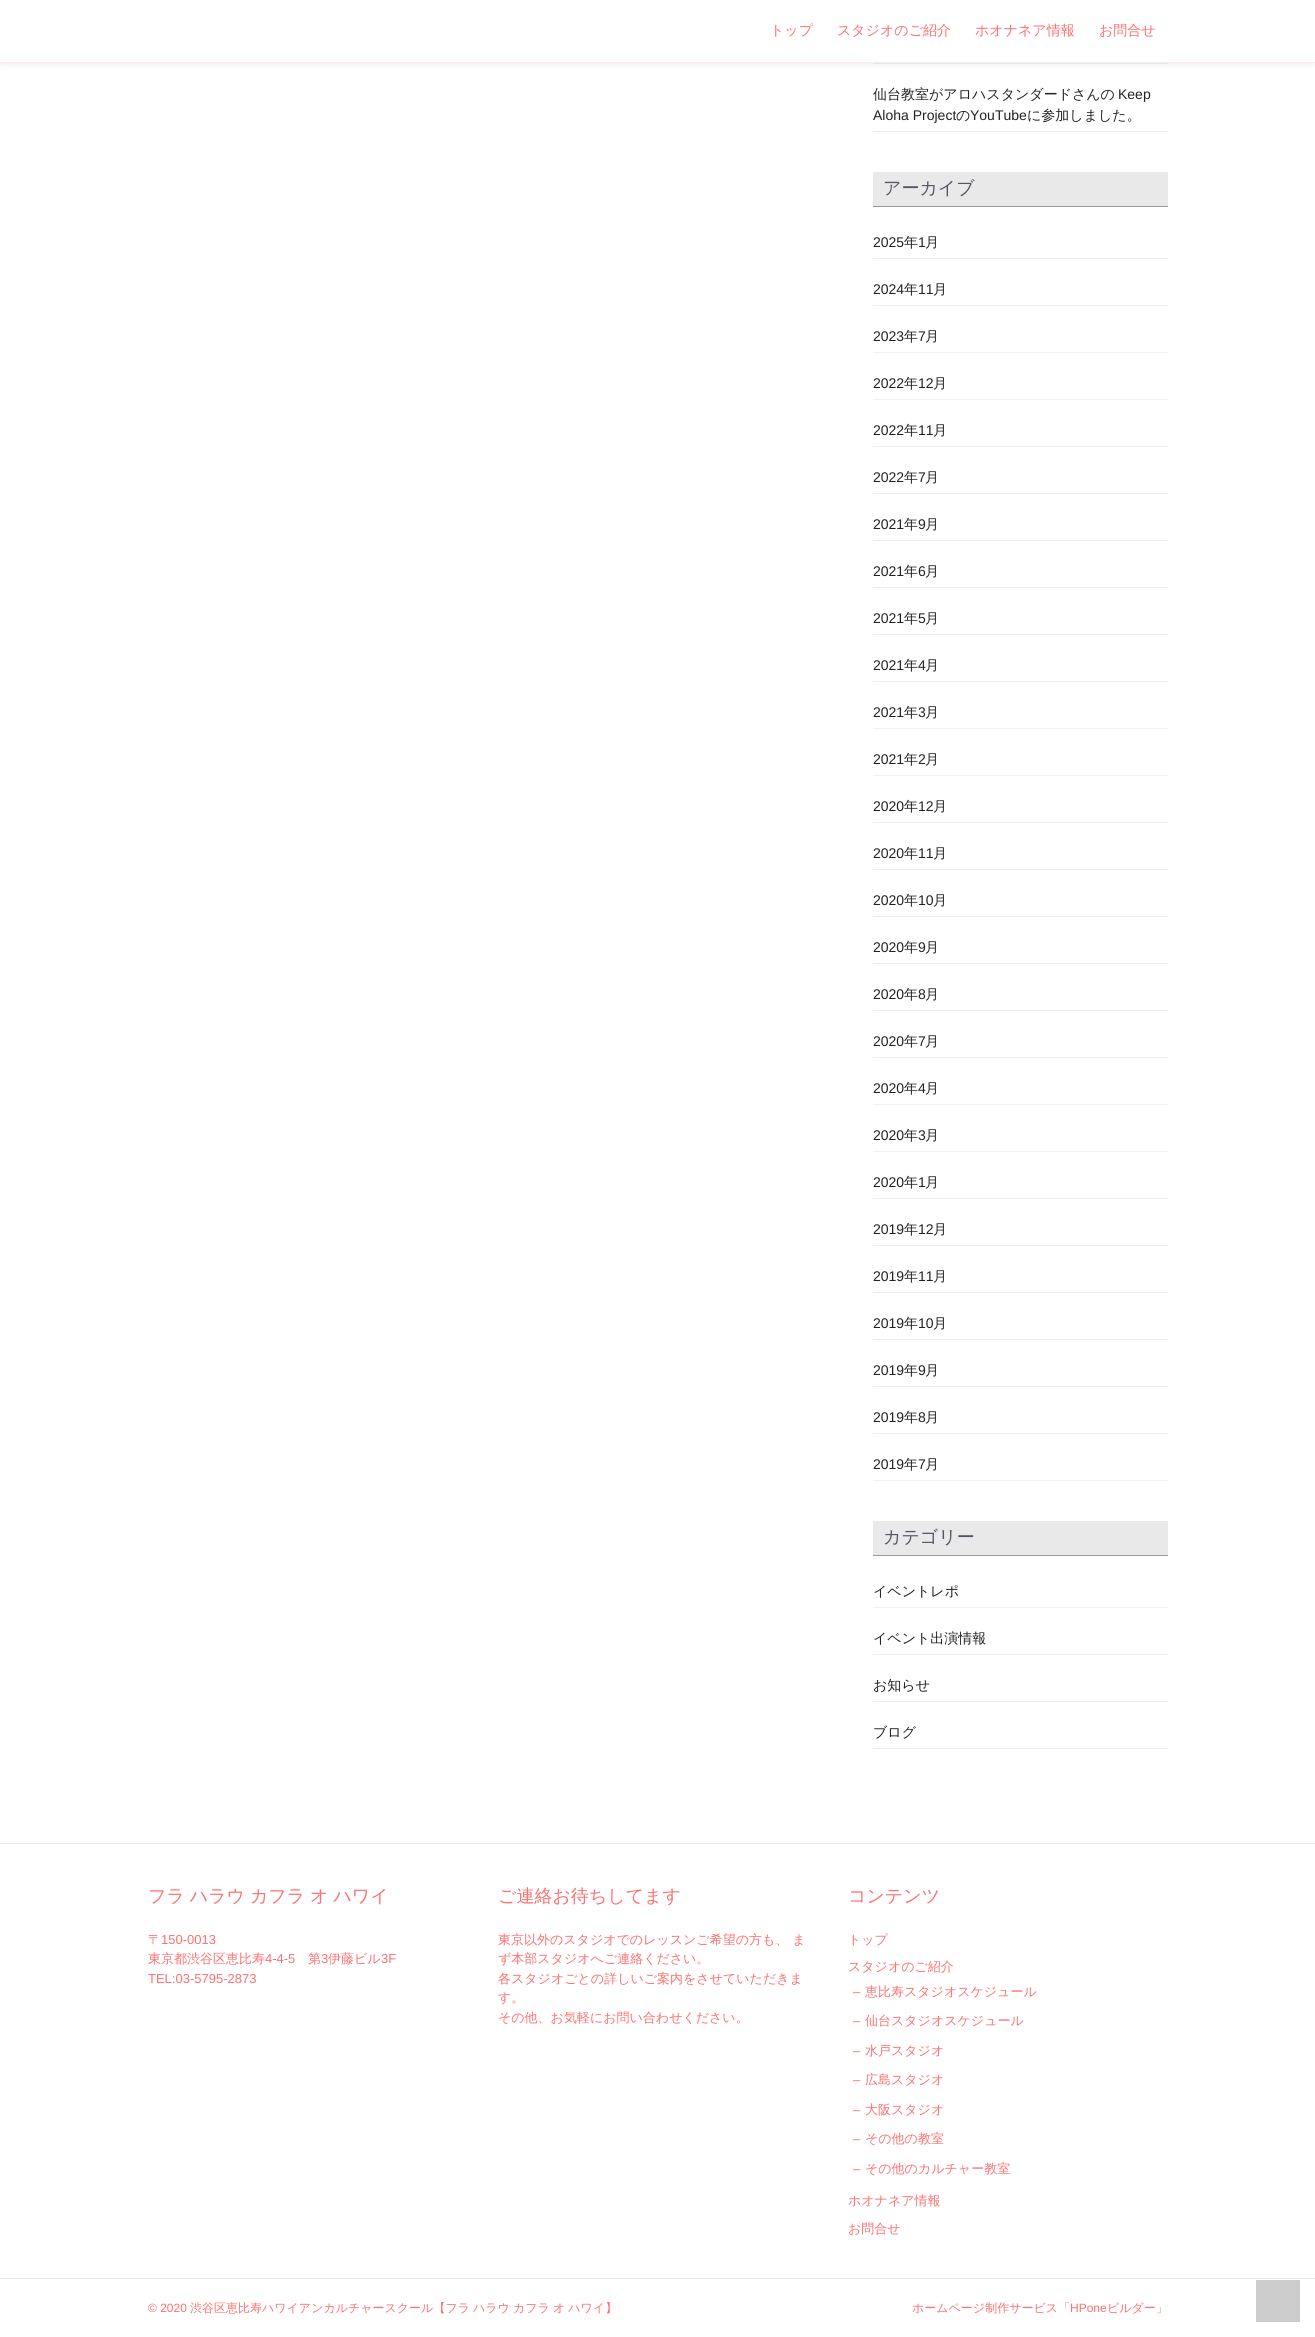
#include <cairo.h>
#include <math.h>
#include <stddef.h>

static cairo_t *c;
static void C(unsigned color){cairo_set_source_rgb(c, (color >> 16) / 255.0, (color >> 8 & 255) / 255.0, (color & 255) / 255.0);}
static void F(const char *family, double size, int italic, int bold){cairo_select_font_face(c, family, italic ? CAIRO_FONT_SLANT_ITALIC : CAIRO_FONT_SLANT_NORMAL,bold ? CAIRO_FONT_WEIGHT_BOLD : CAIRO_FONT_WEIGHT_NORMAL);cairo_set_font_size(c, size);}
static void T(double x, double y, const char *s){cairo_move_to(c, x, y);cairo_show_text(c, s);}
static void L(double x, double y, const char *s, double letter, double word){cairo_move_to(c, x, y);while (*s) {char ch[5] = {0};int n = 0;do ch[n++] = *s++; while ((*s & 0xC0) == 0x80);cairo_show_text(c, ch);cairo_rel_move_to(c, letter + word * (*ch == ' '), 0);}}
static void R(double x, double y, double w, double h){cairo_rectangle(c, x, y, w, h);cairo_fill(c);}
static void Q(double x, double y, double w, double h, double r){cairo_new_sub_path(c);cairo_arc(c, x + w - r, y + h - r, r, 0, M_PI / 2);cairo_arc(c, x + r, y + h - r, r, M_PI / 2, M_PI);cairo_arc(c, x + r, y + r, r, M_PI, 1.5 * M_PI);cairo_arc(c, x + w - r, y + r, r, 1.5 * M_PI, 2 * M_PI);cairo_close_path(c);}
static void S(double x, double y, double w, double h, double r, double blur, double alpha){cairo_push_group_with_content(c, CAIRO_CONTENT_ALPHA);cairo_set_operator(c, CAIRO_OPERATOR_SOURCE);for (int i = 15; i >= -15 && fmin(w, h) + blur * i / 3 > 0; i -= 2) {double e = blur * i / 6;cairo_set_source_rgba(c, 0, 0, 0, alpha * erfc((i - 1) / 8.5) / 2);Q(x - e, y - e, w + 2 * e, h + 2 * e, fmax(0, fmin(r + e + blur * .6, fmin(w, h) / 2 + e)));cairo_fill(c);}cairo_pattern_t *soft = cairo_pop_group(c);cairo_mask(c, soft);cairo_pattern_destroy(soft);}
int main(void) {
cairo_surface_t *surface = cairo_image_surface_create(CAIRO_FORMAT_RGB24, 1315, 2337);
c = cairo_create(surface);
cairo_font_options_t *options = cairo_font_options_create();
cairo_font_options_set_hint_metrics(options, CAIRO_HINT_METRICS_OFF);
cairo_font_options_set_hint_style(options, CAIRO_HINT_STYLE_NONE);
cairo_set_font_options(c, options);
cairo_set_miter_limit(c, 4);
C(0xffffff);
cairo_paint(c);
C(0xecf0f1);
R(873,63,295,1);
C(0x000000);
S(0,0,1315,63,0,3.5,.1);
C(0xffffff);
R(0,0,1315,62);
C(0xffecec);
R(0,62,1315,1);
F("WenQuanYi Zen Hei Medium",14,0,0);
C(0xff7070);
T(770,35,"トップ");
T(837,35,"スタジオのご紹介");
T(975,35,"ホオナネア情報");
T(1099,35,"お問合せ");
C(0xecf0f1);
R(873,131,295,1);
C(0x222222);
T(873,99,"仙台教室がアロハスタンダードさんの");
F("Liberation Sans",14,0,0);
T(1118,99,"Keep");
T(873,120,"Aloha Project");
F("WenQuanYi Zen Hei Medium",14,0,0);
T(956,120,"の");
F("Liberation Sans",14,0,0);
T(970,120,"YouTube");
F("WenQuanYi Zen Hei Medium",14,0,0);
T(1027,120,"に参加しました。");
C(0xe9e9e9);
R(873,172,295,34);
C(0x999999);
R(873,206,295,1);
F("WenQuanYi Zen Hei Medium",18,0,0);
C(0x555566);
T(883,194,"アーカイブ");
C(0xecf0f1);
R(873,258,295,1);
F("Liberation Sans",14,0,0);
C(0x222222);
T(873,247,"2025");
F("WenQuanYi Zen Hei Medium",14,0,0);
T(904,247,"年");
F("Liberation Sans",14,0,0);
T(918,247,"1");
F("WenQuanYi Zen Hei Medium",14,0,0);
T(925,247,"月");
C(0xecf0f1);
R(873,305,295,1);
F("Liberation Sans",14,0,0);
C(0x222222);
T(873,294,"2024");
F("WenQuanYi Zen Hei Medium",14,0,0);
T(904,294,"年");
F("Liberation Sans",14,0,0);
T(918,294,"11");
F("WenQuanYi Zen Hei Medium",14,0,0);
T(933,294,"月");
C(0xecf0f1);
R(873,352,295,1);
F("Liberation Sans",14,0,0);
C(0x222222);
T(873,341,"2023");
F("WenQuanYi Zen Hei Medium",14,0,0);
T(904,341,"年");
F("Liberation Sans",14,0,0);
T(918,341,"7");
F("WenQuanYi Zen Hei Medium",14,0,0);
T(925,341,"月");
C(0xecf0f1);
R(873,399,295,1);
F("Liberation Sans",14,0,0);
C(0x222222);
T(873,388,"2022");
F("WenQuanYi Zen Hei Medium",14,0,0);
T(904,388,"年");
F("Liberation Sans",14,0,0);
T(918,388,"12");
F("WenQuanYi Zen Hei Medium",14,0,0);
T(933,388,"月");
C(0xecf0f1);
R(873,446,295,1);
F("Liberation Sans",14,0,0);
C(0x222222);
T(873,435,"2022");
F("WenQuanYi Zen Hei Medium",14,0,0);
T(904,435,"年");
F("Liberation Sans",14,0,0);
T(918,435,"11");
F("WenQuanYi Zen Hei Medium",14,0,0);
T(933,435,"月");
C(0xecf0f1);
R(873,493,295,1);
F("Liberation Sans",14,0,0);
C(0x222222);
T(873,482,"2022");
F("WenQuanYi Zen Hei Medium",14,0,0);
T(904,482,"年");
F("Liberation Sans",14,0,0);
T(918,482,"7");
F("WenQuanYi Zen Hei Medium",14,0,0);
T(925,482,"月");
C(0xecf0f1);
R(873,540,295,1);
F("Liberation Sans",14,0,0);
C(0x222222);
T(873,529,"2021");
F("WenQuanYi Zen Hei Medium",14,0,0);
T(904,529,"年");
F("Liberation Sans",14,0,0);
T(918,529,"9");
F("WenQuanYi Zen Hei Medium",14,0,0);
T(925,529,"月");
C(0xecf0f1);
R(873,587,295,1);
F("Liberation Sans",14,0,0);
C(0x222222);
T(873,576,"2021");
F("WenQuanYi Zen Hei Medium",14,0,0);
T(904,576,"年");
F("Liberation Sans",14,0,0);
T(918,576,"6");
F("WenQuanYi Zen Hei Medium",14,0,0);
T(925,576,"月");
C(0xecf0f1);
R(873,634,295,1);
F("Liberation Sans",14,0,0);
C(0x222222);
T(873,623,"2021");
F("WenQuanYi Zen Hei Medium",14,0,0);
T(904,623,"年");
F("Liberation Sans",14,0,0);
T(918,623,"5");
F("WenQuanYi Zen Hei Medium",14,0,0);
T(925,623,"月");
C(0xecf0f1);
R(873,681,295,1);
F("Liberation Sans",14,0,0);
C(0x222222);
T(873,670,"2021");
F("WenQuanYi Zen Hei Medium",14,0,0);
T(904,670,"年");
F("Liberation Sans",14,0,0);
T(918,670,"4");
F("WenQuanYi Zen Hei Medium",14,0,0);
T(925,670,"月");
C(0xecf0f1);
R(873,728,295,1);
F("Liberation Sans",14,0,0);
C(0x222222);
T(873,717,"2021");
F("WenQuanYi Zen Hei Medium",14,0,0);
T(904,717,"年");
F("Liberation Sans",14,0,0);
T(918,717,"3");
F("WenQuanYi Zen Hei Medium",14,0,0);
T(925,717,"月");
C(0xecf0f1);
R(873,775,295,1);
F("Liberation Sans",14,0,0);
C(0x222222);
T(873,764,"2021");
F("WenQuanYi Zen Hei Medium",14,0,0);
T(904,764,"年");
F("Liberation Sans",14,0,0);
T(918,764,"2");
F("WenQuanYi Zen Hei Medium",14,0,0);
T(925,764,"月");
C(0xecf0f1);
R(873,822,295,1);
F("Liberation Sans",14,0,0);
C(0x222222);
T(873,811,"2020");
F("WenQuanYi Zen Hei Medium",14,0,0);
T(904,811,"年");
F("Liberation Sans",14,0,0);
T(918,811,"12");
F("WenQuanYi Zen Hei Medium",14,0,0);
T(933,811,"月");
C(0xecf0f1);
R(873,869,295,1);
F("Liberation Sans",14,0,0);
C(0x222222);
T(873,858,"2020");
F("WenQuanYi Zen Hei Medium",14,0,0);
T(904,858,"年");
F("Liberation Sans",14,0,0);
T(918,858,"11");
F("WenQuanYi Zen Hei Medium",14,0,0);
T(933,858,"月");
C(0xecf0f1);
R(873,916,295,1);
F("Liberation Sans",14,0,0);
C(0x222222);
T(873,905,"2020");
F("WenQuanYi Zen Hei Medium",14,0,0);
T(904,905,"年");
F("Liberation Sans",14,0,0);
T(918,905,"10");
F("WenQuanYi Zen Hei Medium",14,0,0);
T(933,905,"月");
C(0xecf0f1);
R(873,963,295,1);
F("Liberation Sans",14,0,0);
C(0x222222);
T(873,952,"2020");
F("WenQuanYi Zen Hei Medium",14,0,0);
T(904,952,"年");
F("Liberation Sans",14,0,0);
T(918,952,"9");
F("WenQuanYi Zen Hei Medium",14,0,0);
T(925,952,"月");
C(0xecf0f1);
R(873,1010,295,1);
F("Liberation Sans",14,0,0);
C(0x222222);
T(873,999,"2020");
F("WenQuanYi Zen Hei Medium",14,0,0);
T(904,999,"年");
F("Liberation Sans",14,0,0);
T(918,999,"8");
F("WenQuanYi Zen Hei Medium",14,0,0);
T(925,999,"月");
C(0xecf0f1);
R(873,1057,295,1);
F("Liberation Sans",14,0,0);
C(0x222222);
T(873,1046,"2020");
F("WenQuanYi Zen Hei Medium",14,0,0);
T(904,1046,"年");
F("Liberation Sans",14,0,0);
T(918,1046,"7");
F("WenQuanYi Zen Hei Medium",14,0,0);
T(925,1046,"月");
C(0xecf0f1);
R(873,1104,295,1);
F("Liberation Sans",14,0,0);
C(0x222222);
T(873,1093,"2020");
F("WenQuanYi Zen Hei Medium",14,0,0);
T(904,1093,"年");
F("Liberation Sans",14,0,0);
T(918,1093,"4");
F("WenQuanYi Zen Hei Medium",14,0,0);
T(925,1093,"月");
C(0xecf0f1);
R(873,1151,295,1);
F("Liberation Sans",14,0,0);
C(0x222222);
T(873,1140,"2020");
F("WenQuanYi Zen Hei Medium",14,0,0);
T(904,1140,"年");
F("Liberation Sans",14,0,0);
T(918,1140,"3");
F("WenQuanYi Zen Hei Medium",14,0,0);
T(925,1140,"月");
C(0xecf0f1);
R(873,1198,295,1);
F("Liberation Sans",14,0,0);
C(0x222222);
T(873,1187,"2020");
F("WenQuanYi Zen Hei Medium",14,0,0);
T(904,1187,"年");
F("Liberation Sans",14,0,0);
T(918,1187,"1");
F("WenQuanYi Zen Hei Medium",14,0,0);
T(925,1187,"月");
C(0xecf0f1);
R(873,1245,295,1);
F("Liberation Sans",14,0,0);
C(0x222222);
T(873,1234,"2019");
F("WenQuanYi Zen Hei Medium",14,0,0);
T(904,1234,"年");
F("Liberation Sans",14,0,0);
T(918,1234,"12");
F("WenQuanYi Zen Hei Medium",14,0,0);
T(933,1234,"月");
C(0xecf0f1);
R(873,1292,295,1);
F("Liberation Sans",14,0,0);
C(0x222222);
T(873,1281,"2019");
F("WenQuanYi Zen Hei Medium",14,0,0);
T(904,1281,"年");
F("Liberation Sans",14,0,0);
T(918,1281,"11");
F("WenQuanYi Zen Hei Medium",14,0,0);
T(933,1281,"月");
C(0xecf0f1);
R(873,1339,295,1);
F("Liberation Sans",14,0,0);
C(0x222222);
T(873,1328,"2019");
F("WenQuanYi Zen Hei Medium",14,0,0);
T(904,1328,"年");
F("Liberation Sans",14,0,0);
T(918,1328,"10");
F("WenQuanYi Zen Hei Medium",14,0,0);
T(933,1328,"月");
C(0xecf0f1);
R(873,1386,295,1);
F("Liberation Sans",14,0,0);
C(0x222222);
T(873,1375,"2019");
F("WenQuanYi Zen Hei Medium",14,0,0);
T(904,1375,"年");
F("Liberation Sans",14,0,0);
T(918,1375,"9");
F("WenQuanYi Zen Hei Medium",14,0,0);
T(925,1375,"月");
C(0xecf0f1);
R(873,1433,295,1);
F("Liberation Sans",14,0,0);
C(0x222222);
T(873,1422,"2019");
F("WenQuanYi Zen Hei Medium",14,0,0);
T(904,1422,"年");
F("Liberation Sans",14,0,0);
T(918,1422,"8");
F("WenQuanYi Zen Hei Medium",14,0,0);
T(925,1422,"月");
C(0xecf0f1);
R(873,1480,295,1);
F("Liberation Sans",14,0,0);
C(0x222222);
T(873,1469,"2019");
F("WenQuanYi Zen Hei Medium",14,0,0);
T(904,1469,"年");
F("Liberation Sans",14,0,0);
T(918,1469,"7");
F("WenQuanYi Zen Hei Medium",14,0,0);
T(925,1469,"月");
C(0xe9e9e9);
R(873,1521,295,34);
C(0x999999);
R(873,1555,295,1);
F("WenQuanYi Zen Hei Medium",18,0,0);
C(0x555566);
T(883,1543,"カテゴリー");
C(0xecf0f1);
R(873,1607,295,1);
F("WenQuanYi Zen Hei Medium",14,0,0);
C(0x222222);
T(873,1596,"イベントレポ");
C(0xecf0f1);
R(873,1654,295,1);
C(0x222222);
T(873,1643,"イベント出演情報");
C(0xecf0f1);
R(873,1701,295,1);
C(0x222222);
T(873,1690,"お知らせ");
C(0xecf0f1);
R(873,1748,295,1);
C(0x222222);
T(873,1737,"ブログ");
C(0xe6e6e6);
R(0,1843,1315,1);
F("WenQuanYi Zen Hei Medium",18,0,0);
C(0xff7070);
L(148,1902,"フラ ハラウ カフラ オ ハワイ",0,-.5);
F("WenQuanYi Zen Hei Medium",13,0,0);
T(148,1944,"〒");
F("Liberation Sans",13,0,0);
T(161,1944,"150-0013");
F("WenQuanYi Zen Hei Medium",13,0,0);
T(148,1963,"東京都渋谷区恵比寿");
F("Liberation Sans",13,0,0);
T(265,1963,"4-4-5");
F("WenQuanYi Zen Hei Medium",13,0,0);
T(308,1963,"第");
F("Liberation Sans",13,0,0);
T(321,1963,"3");
F("WenQuanYi Zen Hei Medium",13,0,0);
T(328,1963,"伊藤ビル");
F("Liberation Sans",13,0,0);
T(381,1963,"3F");
T(148,1983,"TEL:03-5795-2873");
F("WenQuanYi Zen Hei Medium",18,0,0);
T(498,1902,"ご連絡お待ちしてます");
F("WenQuanYi Zen Hei Medium",13,0,0);
T(498,1944,"東京以外のスタジオでのレッスンご希望の方も、 ま");
T(498,1963,"ず本部スタジオへご連絡ください。");
T(498,1983,"各スタジオごとの詳しいご案内をさせていただきま");
T(498,2002,"す。");
T(498,2022,"その他、お気軽にお問い合わせください。");
F("WenQuanYi Zen Hei Medium",18,0,0);
T(848,1902,"コンテンツ");
F("WenQuanYi Zen Hei Medium",13,0,0);
T(848,1944,"トップ");
T(848,1971,"スタジオのご紹介");
F("Liberation Sans",13,0,0);
T(853,1996,"–");
F("WenQuanYi Zen Hei Medium",13,0,0);
T(865,1996,"恵比寿スタジオスケジュール");
F("Liberation Sans",13,0,0);
T(853,2025,"–");
F("WenQuanYi Zen Hei Medium",13,0,0);
T(865,2025,"仙台スタジオスケジュール");
F("Liberation Sans",13,0,0);
T(853,2055,"–");
F("WenQuanYi Zen Hei Medium",13,0,0);
T(865,2055,"水戸スタジオ");
F("Liberation Sans",13,0,0);
T(853,2084,"–");
F("WenQuanYi Zen Hei Medium",13,0,0);
T(865,2084,"広島スタジオ");
F("Liberation Sans",13,0,0);
T(853,2114,"–");
F("WenQuanYi Zen Hei Medium",13,0,0);
T(865,2114,"大阪スタジオ");
F("Liberation Sans",13,0,0);
T(853,2143,"–");
F("WenQuanYi Zen Hei Medium",13,0,0);
T(865,2143,"その他の教室");
F("Liberation Sans",13,0,0);
T(853,2173,"–");
F("WenQuanYi Zen Hei Medium",13,0,0);
T(865,2173,"その他のカルチャー教室");
T(848,2205,"ホオナネア情報");
T(848,2233,"お問合せ");
C(0xe6e6e6);
R(0,2278,1315,1);
F("Liberation Sans",12,0,0);
C(0xff7070);
T(148,2312,"© 2020");
F("WenQuanYi Zen Hei Medium",12,0,0);
L(190,2312,"渋谷区恵比寿ハワイアンカルチャースクール【フラ ハラウ カフラ オ ハワイ】",0,-.5);
T(912,2312,"ホームページ制作サービス「");
F("Liberation Sans",12,0,0);
T(1070,2312,"HPone");
F("WenQuanYi Zen Hei Medium",12,0,0);
T(1107,2312,"ビルダー」");
C(0xcccccc);
R(1256,2280,44,42);
cairo_surface_write_to_png(surface, "o.png");
cairo_font_options_destroy(options);
cairo_destroy(c);
cairo_surface_destroy(surface);
return 0;
}
